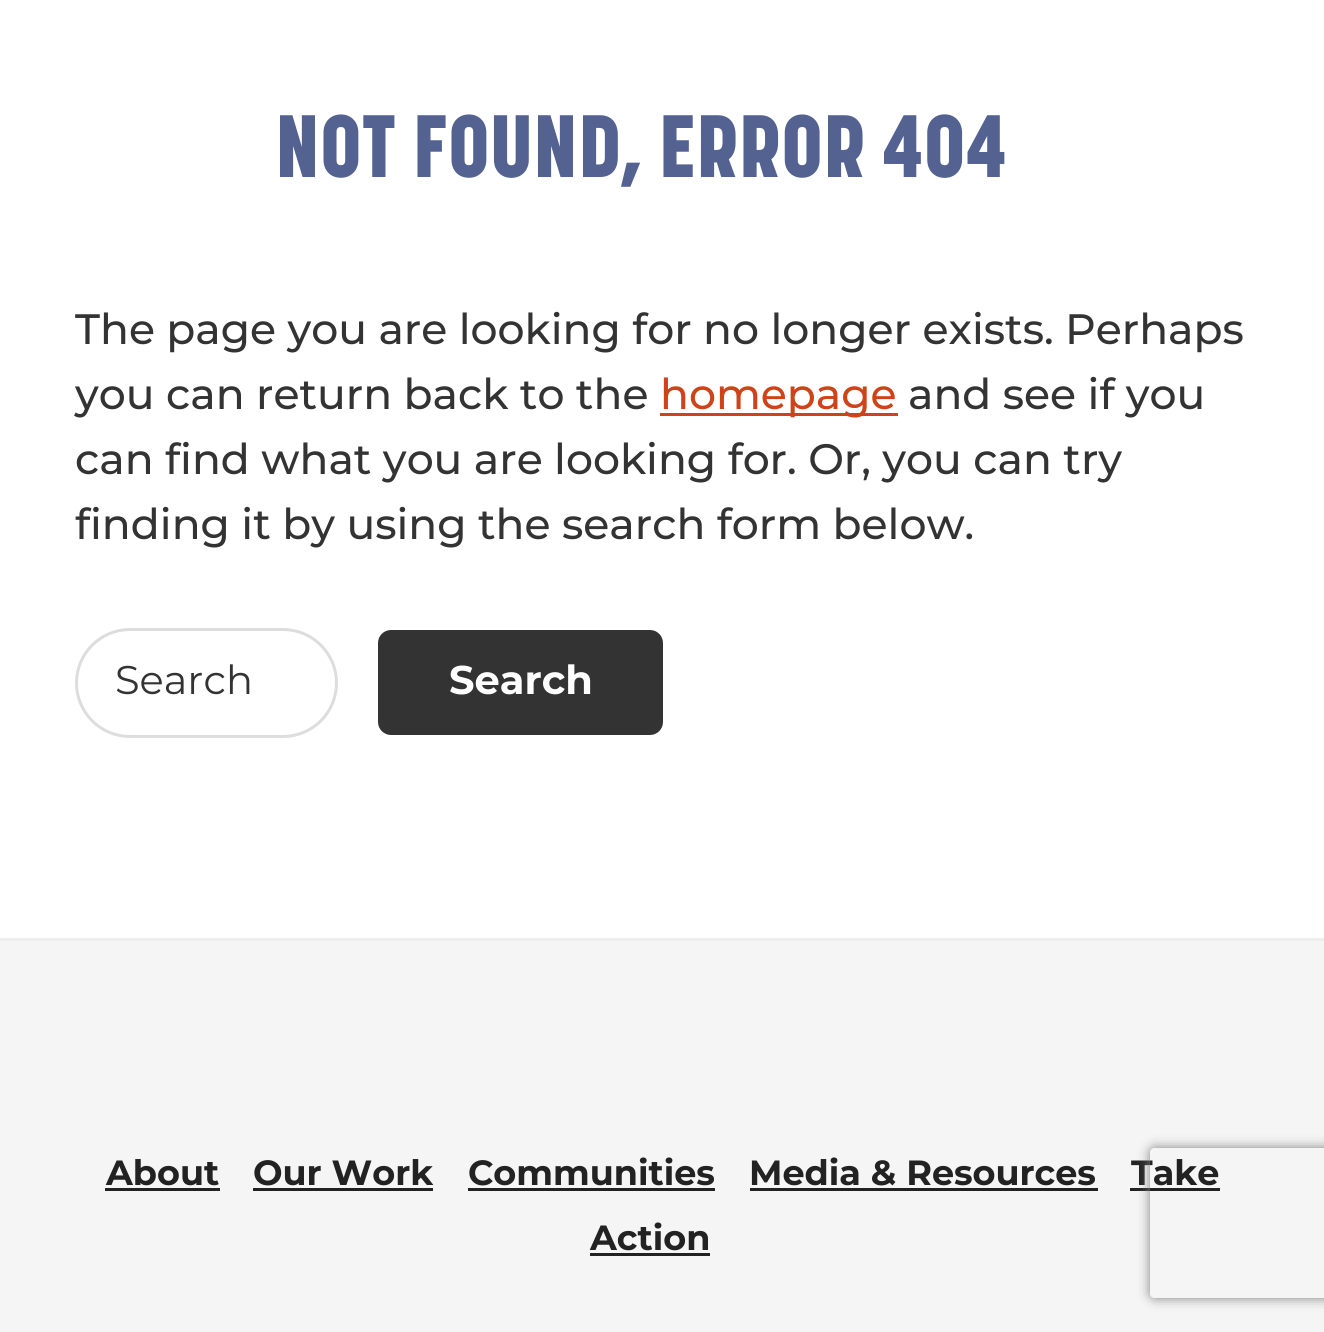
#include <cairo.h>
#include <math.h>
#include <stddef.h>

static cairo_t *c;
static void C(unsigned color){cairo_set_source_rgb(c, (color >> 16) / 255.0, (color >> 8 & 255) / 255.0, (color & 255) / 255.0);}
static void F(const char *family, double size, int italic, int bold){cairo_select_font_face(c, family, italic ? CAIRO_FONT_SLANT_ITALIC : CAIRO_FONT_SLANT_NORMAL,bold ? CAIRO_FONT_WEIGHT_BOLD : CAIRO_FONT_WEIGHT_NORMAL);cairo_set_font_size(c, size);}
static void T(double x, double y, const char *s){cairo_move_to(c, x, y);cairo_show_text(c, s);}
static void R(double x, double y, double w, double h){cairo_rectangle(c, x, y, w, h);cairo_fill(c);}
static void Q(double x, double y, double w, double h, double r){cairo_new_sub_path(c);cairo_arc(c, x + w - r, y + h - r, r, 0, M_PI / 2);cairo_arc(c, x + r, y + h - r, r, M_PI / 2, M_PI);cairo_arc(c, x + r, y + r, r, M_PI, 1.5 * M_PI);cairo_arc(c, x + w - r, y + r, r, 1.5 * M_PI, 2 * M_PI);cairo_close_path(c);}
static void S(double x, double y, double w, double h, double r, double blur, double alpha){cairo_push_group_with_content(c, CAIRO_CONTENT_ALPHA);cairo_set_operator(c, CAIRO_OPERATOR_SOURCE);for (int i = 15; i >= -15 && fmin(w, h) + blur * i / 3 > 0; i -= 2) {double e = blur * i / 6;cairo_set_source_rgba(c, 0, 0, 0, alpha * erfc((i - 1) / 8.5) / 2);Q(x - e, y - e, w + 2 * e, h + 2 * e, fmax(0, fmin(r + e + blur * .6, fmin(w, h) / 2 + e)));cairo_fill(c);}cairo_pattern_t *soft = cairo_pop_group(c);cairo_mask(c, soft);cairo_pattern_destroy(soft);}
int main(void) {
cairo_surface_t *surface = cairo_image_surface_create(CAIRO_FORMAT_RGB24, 1324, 1332);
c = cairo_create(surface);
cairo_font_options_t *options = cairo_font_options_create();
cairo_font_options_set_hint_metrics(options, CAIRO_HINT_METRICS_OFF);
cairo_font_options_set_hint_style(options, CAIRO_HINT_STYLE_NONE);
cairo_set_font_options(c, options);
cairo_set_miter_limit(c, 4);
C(0xffffff);
cairo_paint(c);
F("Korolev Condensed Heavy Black",87.5,0,0);
C(0x546292);
T(275,177,"NOT FOUND, ERROR 404");
F("Montserrat Medium",42.5,0,0);
C(0x333333);
T(75,344,"The page you are looking for no longer exists. Perhaps");
T(75,409,"you can return back to the");
C(0xce4318);
R(660,413,238,3);
T(660,409,"homepage");
C(0x333333);
T(908,409,"and see if you");
T(75,474,"can find what you are looking for. Or, you can try");
T(75,539,"finding it by using the search form below.");
Q(76.5,629.5,260,107,53.5);
C(0xdddddd);
cairo_set_line_width(c,3);
cairo_stroke(c);
F("Montserrat",40,0,0);
C(0x333333);
T(115,694,"Search");
Q(378,630,285,105,13);
cairo_fill(c);
F("Montserrat",40,0,1);
C(0xffffff);
T(449,694,"Search");
C(0xf5f5f5);
R(0,941,1324,391);
C(0xeeeeee);
R(0,938,1324,3);
F("Montserrat",35,0,1);
C(0x222222);
T(106,1185,"About");
R(105,1188,115,3);
T(253,1185,"Our Work");
R(253,1188,180,3);
T(468,1185,"Communities");
R(468,1188,247,3);
T(749,1185,"Media & Resources");
R(750,1188,348,3);
T(1131,1185,"Take");
R(1130,1188,90,3);
T(590,1250,"Action");
R(590,1253,120,3);
cairo_save(c);
cairo_set_fill_rule(c,CAIRO_FILL_RULE_EVEN_ODD);
cairo_new_path(c);
cairo_move_to(c,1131,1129);
cairo_line_to(c,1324,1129);
cairo_line_to(c,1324,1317);
cairo_line_to(c,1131,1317);
cairo_close_path(c);
cairo_move_to(c,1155,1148);
cairo_line_to(c,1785,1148);
cairo_curve_to(c,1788,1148,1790,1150,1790,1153);
cairo_line_to(c,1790,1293);
cairo_curve_to(c,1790,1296,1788,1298,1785,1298);
cairo_line_to(c,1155,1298);
cairo_curve_to(c,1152,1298,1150,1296,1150,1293);
cairo_line_to(c,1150,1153);
cairo_curve_to(c,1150,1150,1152,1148,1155,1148);
cairo_close_path(c);
cairo_clip(c);
C(0x808080);
S(1150,1148,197,150,5,6,1);
cairo_restore(c);
cairo_surface_write_to_png(surface, "o.png");
cairo_font_options_destroy(options);
cairo_destroy(c);
cairo_surface_destroy(surface);
return 0;
}
